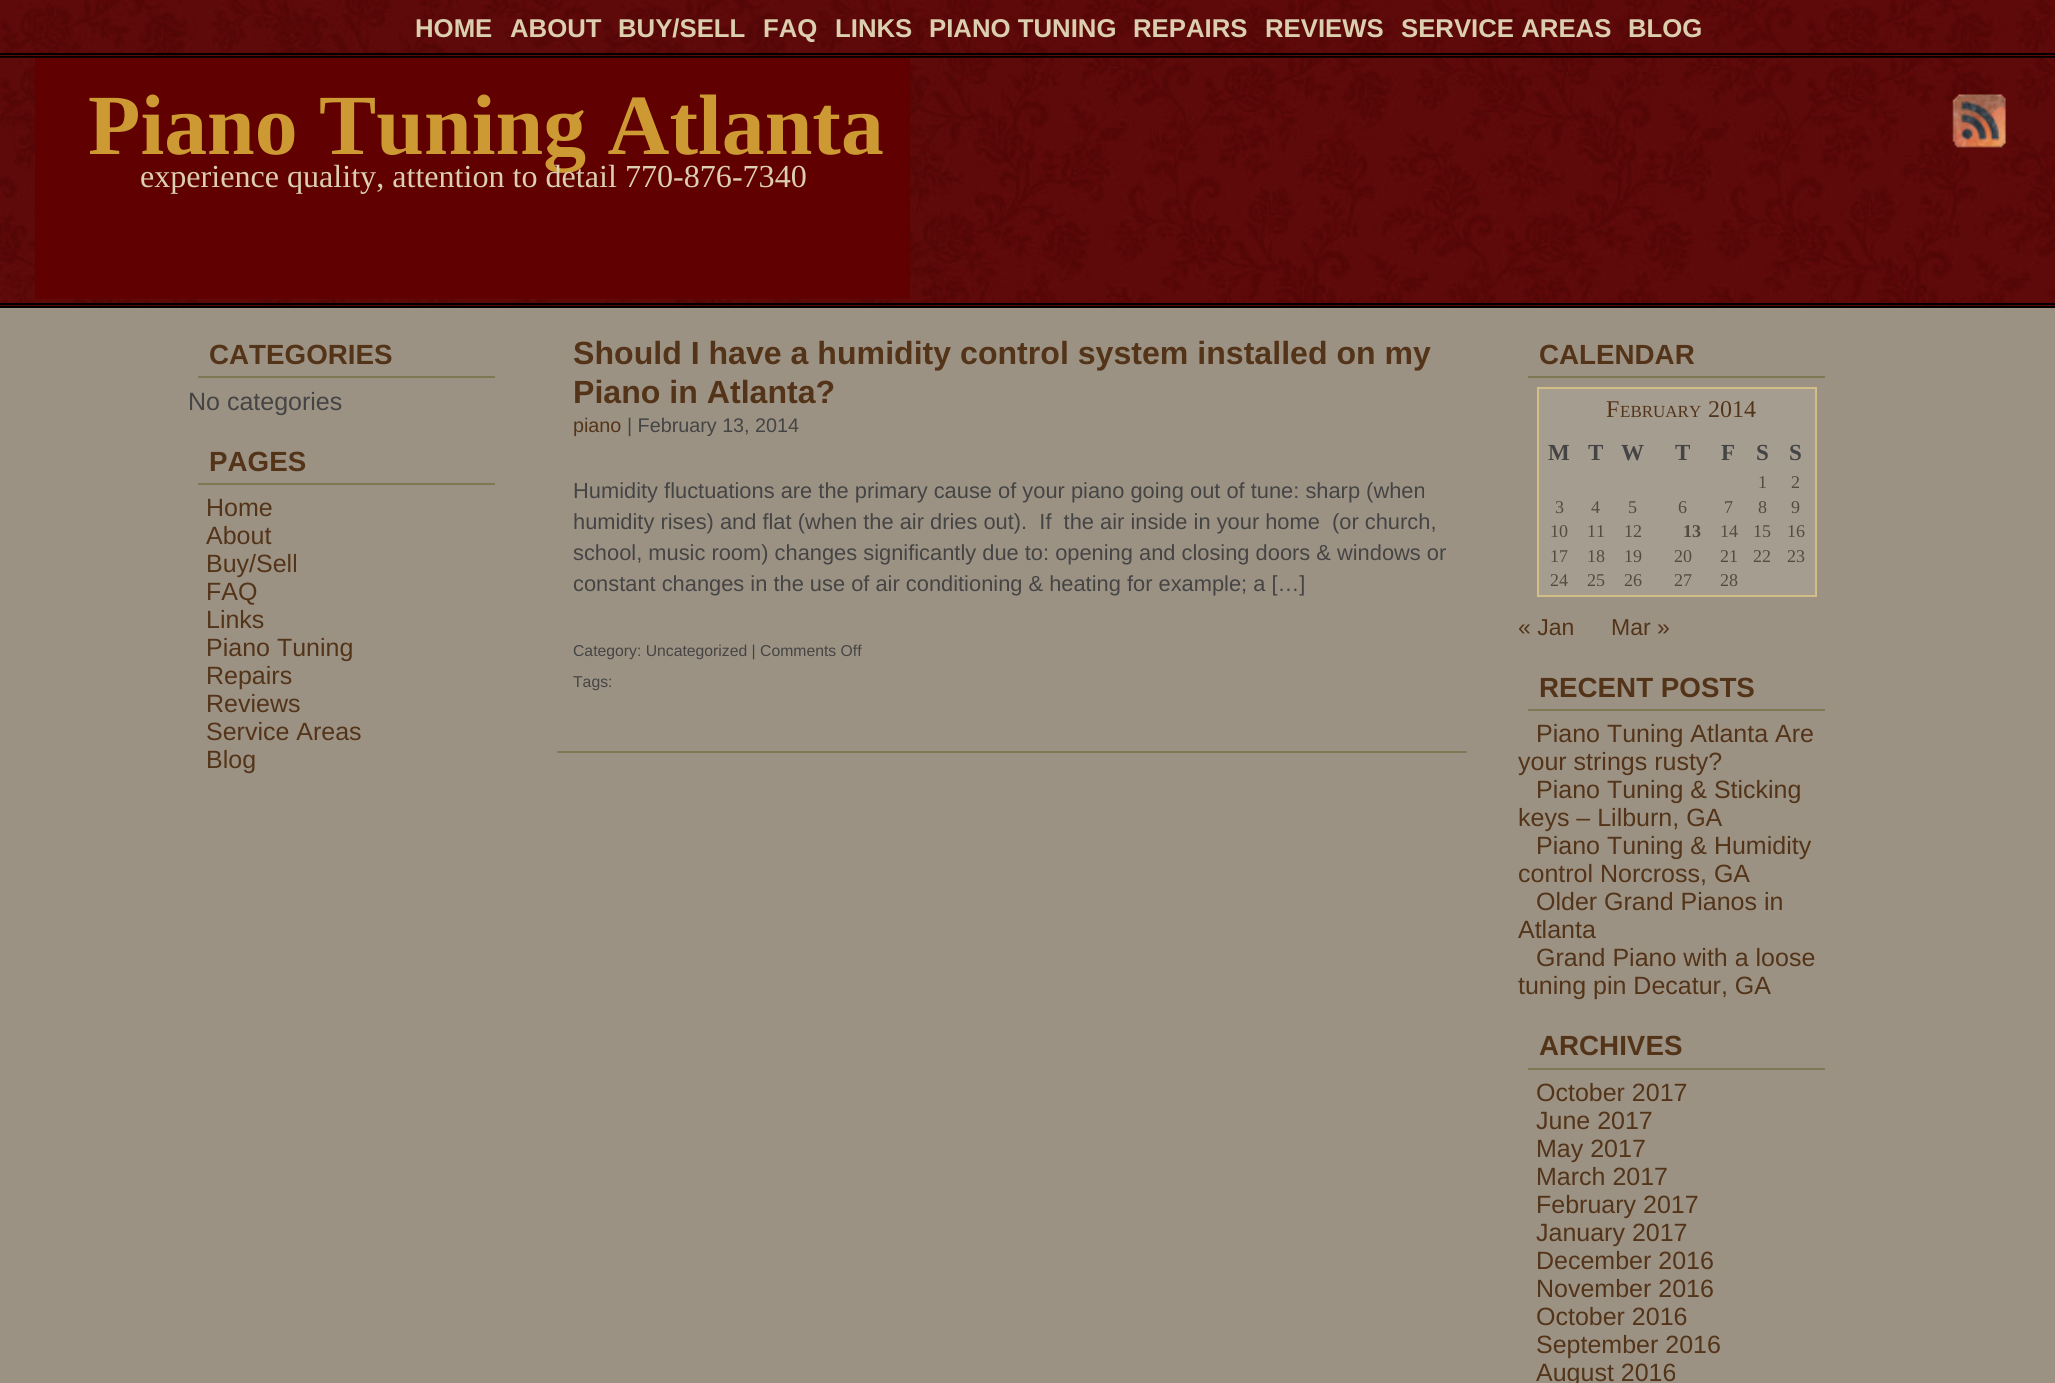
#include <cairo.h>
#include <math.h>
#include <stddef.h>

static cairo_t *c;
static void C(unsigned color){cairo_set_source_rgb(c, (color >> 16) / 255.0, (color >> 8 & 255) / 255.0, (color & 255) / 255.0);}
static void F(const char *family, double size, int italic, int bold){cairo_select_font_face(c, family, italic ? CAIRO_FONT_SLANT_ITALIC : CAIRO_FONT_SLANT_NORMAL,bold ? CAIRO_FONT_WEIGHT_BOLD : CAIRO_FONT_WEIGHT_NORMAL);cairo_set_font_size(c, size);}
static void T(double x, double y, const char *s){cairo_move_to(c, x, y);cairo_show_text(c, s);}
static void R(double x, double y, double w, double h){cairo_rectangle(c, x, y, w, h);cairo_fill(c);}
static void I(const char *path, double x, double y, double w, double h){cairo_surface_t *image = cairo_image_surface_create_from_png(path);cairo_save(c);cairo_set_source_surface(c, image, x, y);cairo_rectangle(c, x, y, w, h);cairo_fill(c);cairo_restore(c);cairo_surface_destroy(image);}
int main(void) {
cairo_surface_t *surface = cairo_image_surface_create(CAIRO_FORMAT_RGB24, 2055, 1383);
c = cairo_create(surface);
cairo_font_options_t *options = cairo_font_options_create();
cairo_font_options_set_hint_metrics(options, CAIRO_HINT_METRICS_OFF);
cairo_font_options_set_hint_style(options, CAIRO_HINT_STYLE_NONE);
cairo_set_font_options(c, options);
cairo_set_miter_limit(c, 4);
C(0x9c9284);
cairo_paint(c);
I("1.png",0,0,2055,56);
C(0x000000);
R(0,53,2055,2);
R(0,56,2055,2);
F("Liberation Sans",25.75,0,1);
C(0xdbcfb0);
T(415,37,"HOME");
T(510,37,"ABOUT");
T(618,37,"BUY/SELL");
T(763,37,"FAQ");
T(835,37,"LINKS");
T(929,37,"PIANO TUNING");
T(1133,37,"REPAIRS");
T(1265,37,"REVIEWS");
T(1401,37,"SERVICE AREAS");
T(1628,37,"BLOG");
I("2.png",0,57,2055,249);
C(0x000000);
R(0,303,2055,2);
R(0,306,2055,2);
C(0x600000);
R(35,58,875,241);
F("Liberation Serif",85.75,0,1);
C(0xcc9933);
T(88,154,"Piano Tuning Atlanta");
F("Liberation Serif",32.1,0,0);
C(0xdbcfb0);
T(140,187,"experience quality, attention to detail 770-876-7340");
I("3.png",1952,94,54,54);
C(0x7c7953);
R(198,376,297,2);
F("Liberation Sans",27.75,0,1);
C(0x533419);
T(209,364,"CATEGORIES");
F("Liberation Sans",25,0,0);
C(0x444444);
T(188,410,"No categories");
C(0x7c7953);
R(198,483,297,2);
F("Liberation Sans",27.75,0,1);
C(0x533419);
T(209,471,"PAGES");
F("Liberation Sans",25,0,0);
T(206,516,"Home");
T(206,544,"About");
T(206,572,"Buy/Sell");
T(206,600,"FAQ");
T(206,628,"Links");
T(206,656,"Piano Tuning");
T(206,684,"Repairs");
T(206,712,"Reviews");
T(206,740,"Service Areas");
T(206,768,"Blog");
F("Liberation Sans",32.1,0,1);
T(573,364,"Should I have a humidity control system installed on my");
T(573,403,"Piano in Atlanta?");
C(0x7c7953);
R(557,751,910,2);
F("Liberation Sans",19.75,0,0);
C(0x533419);
T(573,432,"piano");
C(0x444444);
T(627,432,"| February 13, 2014");
F("Liberation Sans",21.85,0,0);
T(573,498,"Humidity fluctuations are the primary cause of your piano going out of tune: sharp (when");
T(573,529,"humidity rises) and flat (when the air dries out).  If  the air inside in your home  (or church,");
T(573,560,"school, music room) changes significantly due to: opening and closing doors & windows or");
T(573,591,"constant changes in the use of air conditioning & heating for example; a […]");
F("Liberation Sans",15.75,0,0);
T(573,656,"Category: Uncategorized | Comments Off");
T(573,687,"Tags:");
C(0x7c7953);
R(1528,376,297,2);
F("Liberation Sans",27.75,0,1);
C(0x533419);
T(1539,364,"CALENDAR");
C(0xa69d91);
cairo_rectangle(c,1538,388,278,208);
cairo_fill_preserve(c);
C(0xd4be87);
cairo_stroke(c);
F("Liberation Serif",24,0,0);
C(0x533419);
T(1606,417,"F");
F("Liberation Serif",17,0,0);
T(1620,417,"EBRUARY");
F("Liberation Serif",24,0,0);
T(1708,417,"2014");
F("Liberation Serif",23,0,1);
C(0x444444);
T(1548,460,"M");
T(1588,460,"T");
T(1621,460,"W");
T(1675,460,"T");
T(1721,460,"F");
T(1756,460,"S");
T(1789,460,"S");
F("Liberation Serif",18,0,0);
C(0x544b40);
T(1758,488,"1");
T(1791,488,"2");
T(1555,513,"3");
T(1591,513,"4");
T(1628,513,"5");
T(1678,513,"6");
T(1724,513,"7");
T(1758,513,"8");
T(1791,513,"9");
T(1550,537,"10");
T(1587,537,"11");
T(1624,537,"12");
F("Liberation Serif",18,0,1);
T(1683,537,"13");
F("Liberation Serif",18,0,0);
T(1720,537,"14");
T(1753,537,"15");
T(1787,537,"16");
T(1550,562,"17");
T(1587,562,"18");
T(1624,562,"19");
T(1674,562,"20");
T(1720,562,"21");
T(1753,562,"22");
T(1787,562,"23");
T(1550,586,"24");
T(1587,586,"25");
T(1624,586,"26");
T(1674,586,"27");
T(1720,586,"28");
F("Liberation Sans",23,0,0);
C(0x533419);
T(1518,635,"« Jan");
T(1611,635,"Mar »");
C(0x7c7953);
R(1528,709,297,2);
F("Liberation Sans",27.75,0,1);
C(0x533419);
T(1539,697,"RECENT POSTS");
F("Liberation Sans",25,0,0);
T(1536,742,"Piano Tuning Atlanta Are");
T(1518,770,"your strings rusty?");
T(1536,798,"Piano Tuning & Sticking");
T(1518,826,"keys – Lilburn, GA");
T(1536,854,"Piano Tuning & Humidity");
T(1518,882,"control Norcross, GA");
T(1536,910,"Older Grand Pianos in");
T(1518,938,"Atlanta");
T(1536,966,"Grand Piano with a loose");
T(1518,994,"tuning pin Decatur, GA");
C(0x7c7953);
R(1528,1068,297,2);
F("Liberation Sans",27.75,0,1);
C(0x533419);
T(1539,1055,"ARCHIVES");
F("Liberation Sans",25,0,0);
T(1536,1101,"October 2017");
T(1536,1129,"June 2017");
T(1536,1157,"May 2017");
T(1536,1185,"March 2017");
T(1536,1213,"February 2017");
T(1536,1241,"January 2017");
T(1536,1269,"December 2016");
T(1536,1297,"November 2016");
T(1536,1325,"October 2016");
T(1536,1353,"September 2016");
T(1536,1381,"August 2016");
cairo_surface_write_to_png(surface, "o.png");
cairo_font_options_destroy(options);
cairo_destroy(c);
cairo_surface_destroy(surface);
return 0;
}
